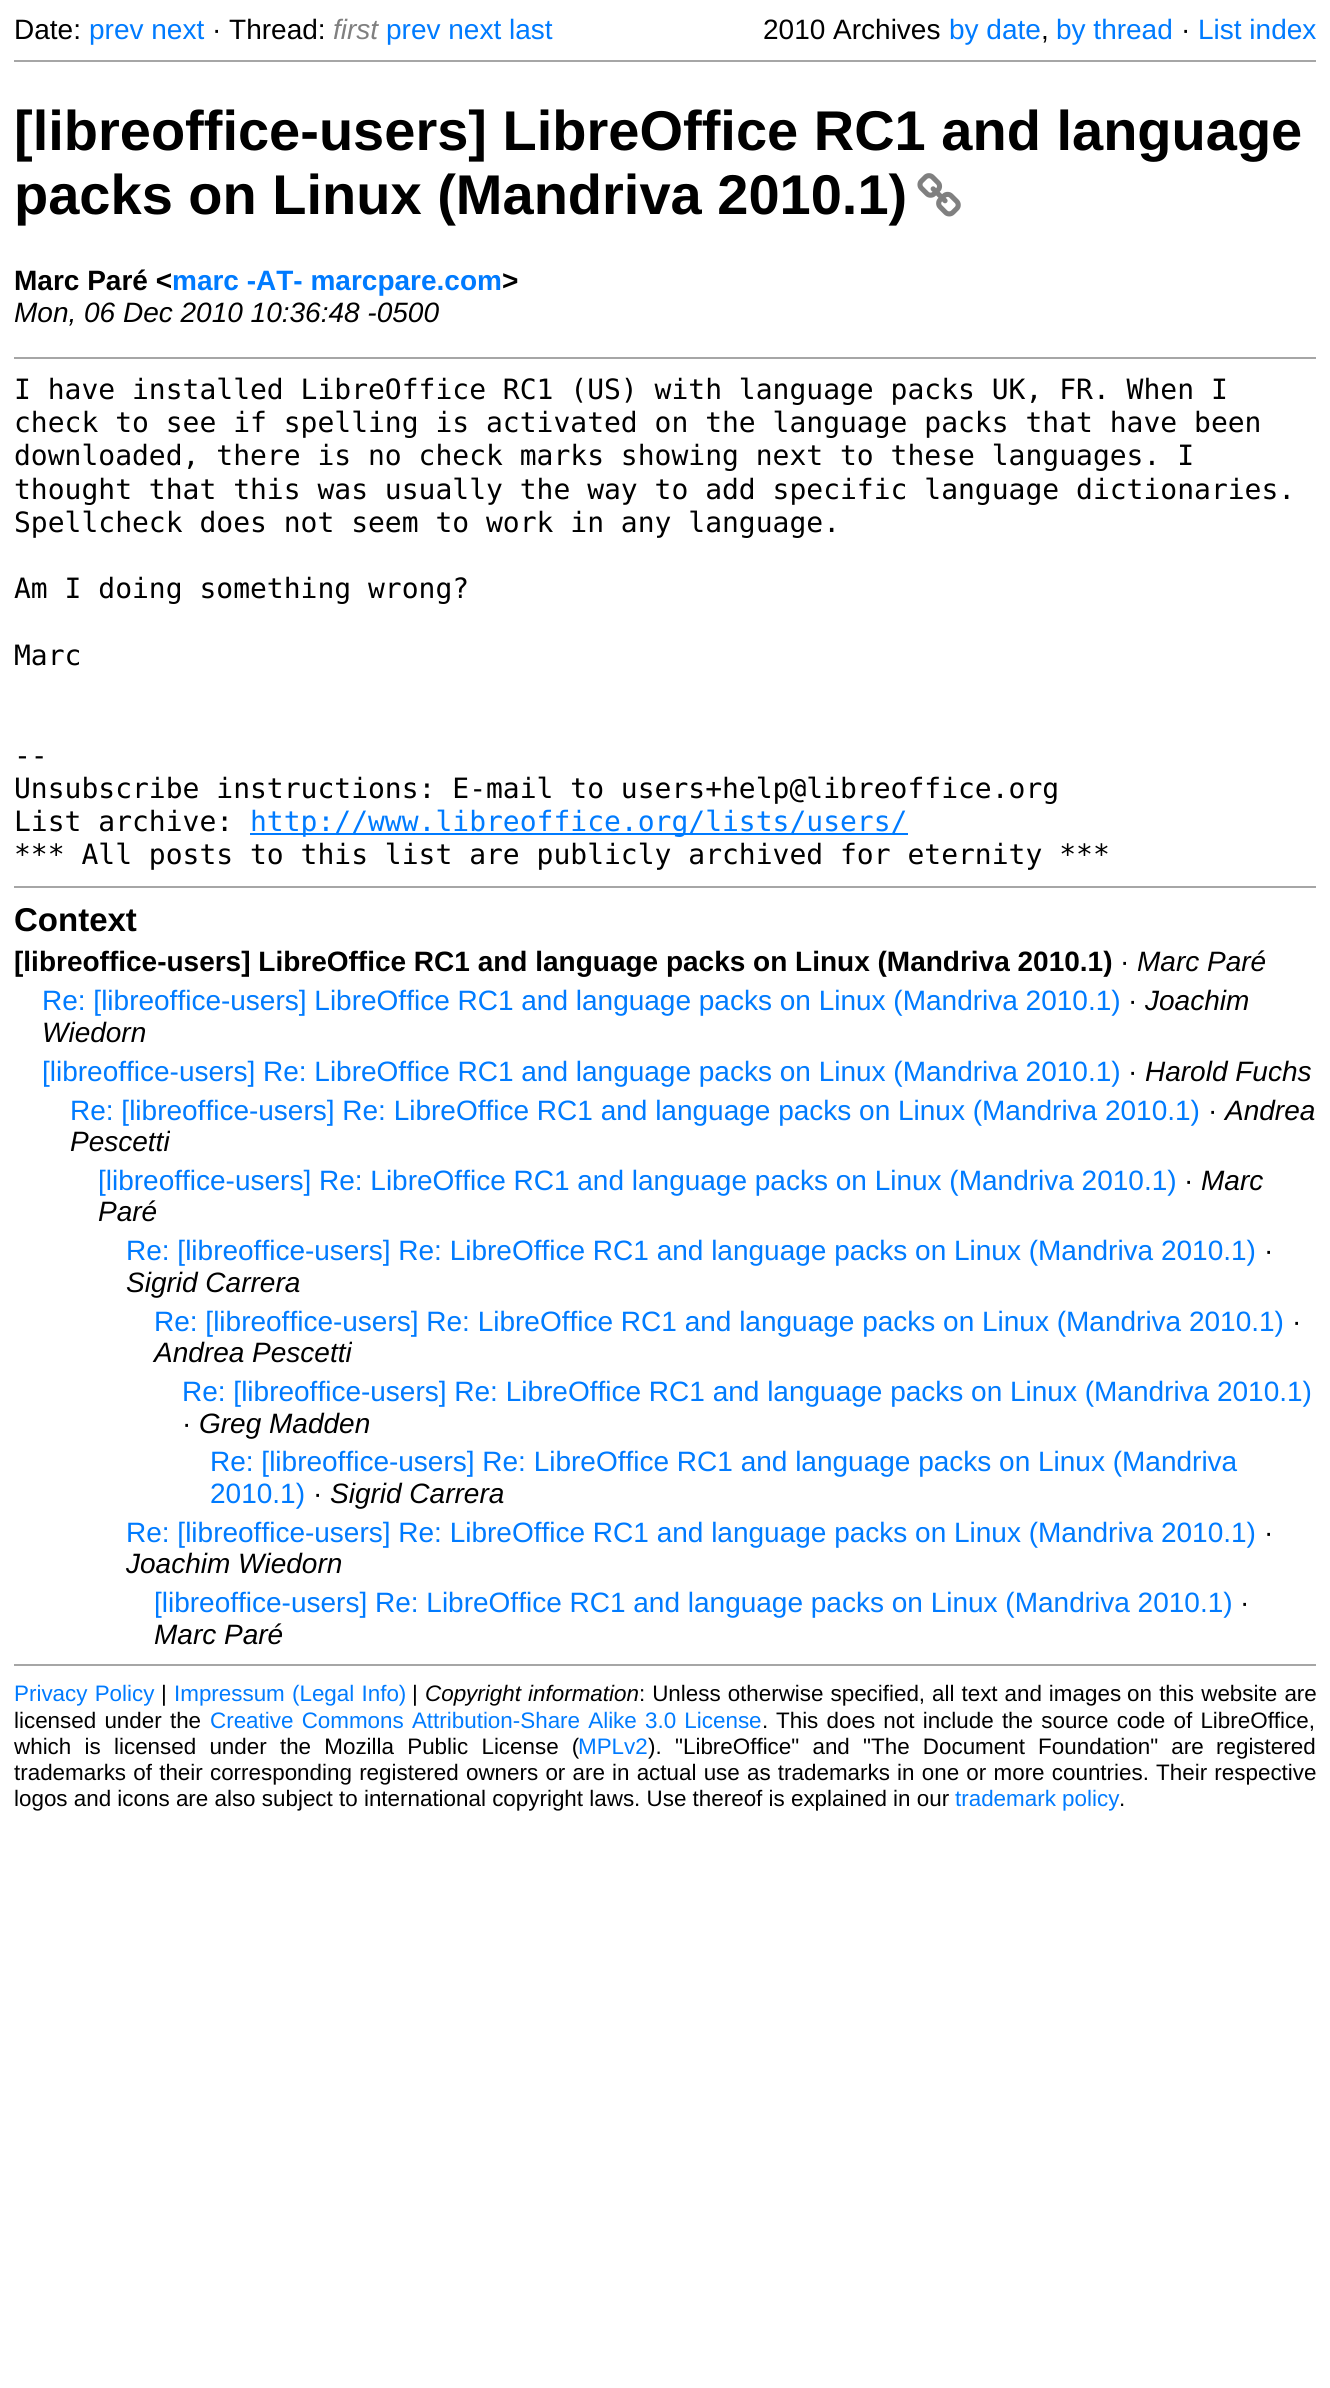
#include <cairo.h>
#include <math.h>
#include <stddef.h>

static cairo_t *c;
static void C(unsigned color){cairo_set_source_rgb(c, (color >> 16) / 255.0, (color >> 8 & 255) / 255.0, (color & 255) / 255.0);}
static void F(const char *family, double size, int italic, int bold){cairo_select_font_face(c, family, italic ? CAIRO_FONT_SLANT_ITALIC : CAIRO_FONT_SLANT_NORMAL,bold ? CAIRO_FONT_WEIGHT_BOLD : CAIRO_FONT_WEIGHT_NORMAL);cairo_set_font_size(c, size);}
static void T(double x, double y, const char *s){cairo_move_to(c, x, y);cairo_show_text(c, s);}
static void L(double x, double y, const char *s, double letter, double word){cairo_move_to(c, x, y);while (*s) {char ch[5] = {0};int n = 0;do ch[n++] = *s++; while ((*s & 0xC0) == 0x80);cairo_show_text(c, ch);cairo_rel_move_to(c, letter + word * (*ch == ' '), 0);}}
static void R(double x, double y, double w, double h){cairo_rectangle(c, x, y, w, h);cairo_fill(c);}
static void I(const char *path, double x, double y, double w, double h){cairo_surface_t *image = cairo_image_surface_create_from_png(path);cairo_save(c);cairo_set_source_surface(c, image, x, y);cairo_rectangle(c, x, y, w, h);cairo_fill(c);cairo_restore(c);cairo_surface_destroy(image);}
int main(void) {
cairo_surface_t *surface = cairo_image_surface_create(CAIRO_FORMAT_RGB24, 1330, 2388);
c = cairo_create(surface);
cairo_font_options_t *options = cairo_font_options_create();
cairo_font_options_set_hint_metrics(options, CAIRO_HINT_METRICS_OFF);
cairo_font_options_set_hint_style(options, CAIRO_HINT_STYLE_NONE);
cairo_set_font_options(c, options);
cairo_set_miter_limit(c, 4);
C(0xffffff);
cairo_paint(c);
F("Liberation Sans",28,0,0);
C(0x000000);
T(14,39,"Date:");
C(0x007bff);
T(89,39,"prev next");
C(0x000000);
T(212,39,"· Thread:");
F("Liberation Sans",28,1,0);
C(0x808080);
T(333,39,"first");
F("Liberation Sans",28,0,0);
C(0x007bff);
T(386,39,"prev next last");
C(0x000000);
T(763,39,"2010 Archives");
C(0x007bff);
T(949,39,"by date");
T(1056,39,"by thread");
C(0x000000);
T(1181,39,"·");
C(0x007bff);
T(1198,39,"List index");
C(0x000000);
T(1041,39,",");
C(0xa6a6a6);
R(14,60,1302,2);
F("Liberation Sans",56,0,1);
C(0x000000);
T(14,150,"[libreoffice-users] LibreOffice RC1 and language");
T(14,214,"packs on Linux (Mandriva 2010.1)");
I("1.png",917,173,44,44);
F("Liberation Sans",28,0,1);
T(14,290,"Marc Paré <");
C(0x007bff);
T(172,290,"marc -AT- marcpare.com");
C(0x000000);
T(502,290,">");
F("Liberation Sans",28,1,0);
T(14,322,"Mon, 06 Dec 2010 10:36:48 -0500");
C(0xa6a6a6);
R(14,357,1302,2);
F("DejaVu Sans Mono",28,0,0);
C(0x000000);
T(14,399,"I have installed LibreOffice RC1 (US) with language packs UK, FR. When I");
T(14,432,"check to see if spelling is activated on the language packs that have been");
T(14,465,"downloaded, there is no check marks showing next to these languages. I");
T(14,499,"thought that this was usually the way to add specific language dictionaries.");
T(14,532,"Spellcheck does not seem to work in any language.");
T(14,598,"Am I doing something wrong?");
T(14,665,"Marc");
T(14,765,"--");
T(14,798,"Unsubscribe instructions: E-mail to users+help@libreoffice.org");
T(14,831,"List archive:");
C(0x007bff);
R(250,833,658,2);
T(250,831,"http://www.libreoffice.org/lists/users/");
C(0x000000);
T(14,864,"*** All posts to this list are publicly archived for eternity ***");
C(0xa6a6a6);
R(14,886,1302,2);
F("Liberation Sans",33,0,1);
C(0x000000);
T(14,931,"Context");
F("Liberation Sans",28,0,1);
T(14,971,"[libreoffice-users] LibreOffice RC1 and language packs on Linux (Mandriva 2010.1)");
F("Liberation Sans",28,0,0);
T(1120,971,"·");
F("Liberation Sans",28,1,0);
T(1137,971,"Marc Paré");
F("Liberation Sans",28,0,0);
C(0x007bff);
T(42,1010,"Re: [libreoffice-users] LibreOffice RC1 and language packs on Linux (Mandriva 2010.1)");
C(0x000000);
T(1128,1010,"·");
F("Liberation Sans",28,1,0);
T(1145,1010,"Joachim");
T(42,1042,"Wiedorn");
F("Liberation Sans",28,0,0);
C(0x007bff);
T(42,1081,"[libreoffice-users] Re: LibreOffice RC1 and language packs on Linux (Mandriva 2010.1)");
C(0x000000);
T(1128,1081,"·");
F("Liberation Sans",28,1,0);
T(1145,1081,"Harold Fuchs");
F("Liberation Sans",28,0,0);
C(0x007bff);
T(70,1120,"Re: [libreoffice-users] Re: LibreOffice RC1 and language packs on Linux (Mandriva 2010.1)");
C(0x000000);
T(1208,1120,"·");
F("Liberation Sans",28,1,0);
T(1225,1120,"Andrea");
T(70,1151,"Pescetti");
F("Liberation Sans",28,0,0);
C(0x007bff);
T(98,1190,"[libreoffice-users] Re: LibreOffice RC1 and language packs on Linux (Mandriva 2010.1)");
C(0x000000);
T(1184,1190,"·");
F("Liberation Sans",28,1,0);
T(1201,1190,"Marc");
T(98,1221,"Paré");
F("Liberation Sans",28,0,0);
C(0x007bff);
T(126,1260,"Re: [libreoffice-users] Re: LibreOffice RC1 and language packs on Linux (Mandriva 2010.1)");
C(0x000000);
T(1264,1260,"·");
F("Liberation Sans",28,1,0);
T(126,1292,"Sigrid Carrera");
F("Liberation Sans",28,0,0);
C(0x007bff);
T(154,1331,"Re: [libreoffice-users] Re: LibreOffice RC1 and language packs on Linux (Mandriva 2010.1)");
C(0x000000);
T(1292,1331,"·");
F("Liberation Sans",28,1,0);
T(154,1362,"Andrea Pescetti");
F("Liberation Sans",28,0,0);
C(0x007bff);
T(182,1401,"Re: [libreoffice-users] Re: LibreOffice RC1 and language packs on Linux (Mandriva 2010.1)");
C(0x000000);
T(182,1433,"·");
F("Liberation Sans",28,1,0);
T(199,1433,"Greg Madden");
F("Liberation Sans",28,0,0);
C(0x007bff);
T(210,1471,"Re: [libreoffice-users] Re: LibreOffice RC1 and language packs on Linux (Mandriva");
T(210,1503,"2010.1)");
C(0x000000);
T(313,1503,"·");
F("Liberation Sans",28,1,0);
T(330,1503,"Sigrid Carrera");
F("Liberation Sans",28,0,0);
C(0x007bff);
T(126,1542,"Re: [libreoffice-users] Re: LibreOffice RC1 and language packs on Linux (Mandriva 2010.1)");
C(0x000000);
T(1264,1542,"·");
F("Liberation Sans",28,1,0);
T(126,1573,"Joachim Wiedorn");
F("Liberation Sans",28,0,0);
C(0x007bff);
T(154,1612,"[libreoffice-users] Re: LibreOffice RC1 and language packs on Linux (Mandriva 2010.1)");
C(0x000000);
T(1240,1612,"·");
F("Liberation Sans",28,1,0);
T(154,1644,"Marc Paré");
C(0xa6a6a6);
R(14,1664,1302,2);
F("Liberation Sans",22.4,0,0);
C(0x007bff);
L(14,1701,"Privacy Policy",0,1);
C(0x000000);
T(161,1701,"|");
C(0x007bff);
L(174,1701,"Impressum (Legal Info)",0,1);
C(0x000000);
T(412,1701,"|");
F("Liberation Sans",22.4,1,0);
L(425,1701,"Copyright information",0,1);
F("Liberation Sans",22.4,0,0);
L(639,1701,": Unless otherwise specified, all text and images",0,.75);
L(1127,1701,"on this website are",0,1);
L(14,1728,"licensed under the",0,2);
C(0x007bff);
L(210,1728,"Creative Commons Attribution-Share Alike 3.0 License",0,2);
C(0x000000);
T(762,1728,".");
L(776,1728,"This does not include the source code of LibreOffice,",0,2);
L(14,1754,"which is",0,7);
L(114,1754,"licensed under the Mozilla Public License (",0,7);
C(0x007bff);
T(578,1754,"MPLv2");
C(0x000000);
T(648,1754,").");
L(675,1754,"\"LibreOffice\" and \"The Document Foundation\" are",0,7);
T(1216,1754,"registered");
L(14,1780,"trademarks of their corresponding registered owners or are",0,1);
L(612,1780,"in actual use as trademarks in one or more countries. Their respective",0,1);
T(14,1806,"logos and icons are also subject to international copyright laws. Use thereof is explained in our");
C(0x007bff);
T(955,1806,"trademark policy");
C(0x000000);
T(1119,1806,".");
cairo_surface_write_to_png(surface, "o.png");
cairo_font_options_destroy(options);
cairo_destroy(c);
cairo_surface_destroy(surface);
return 0;
}
